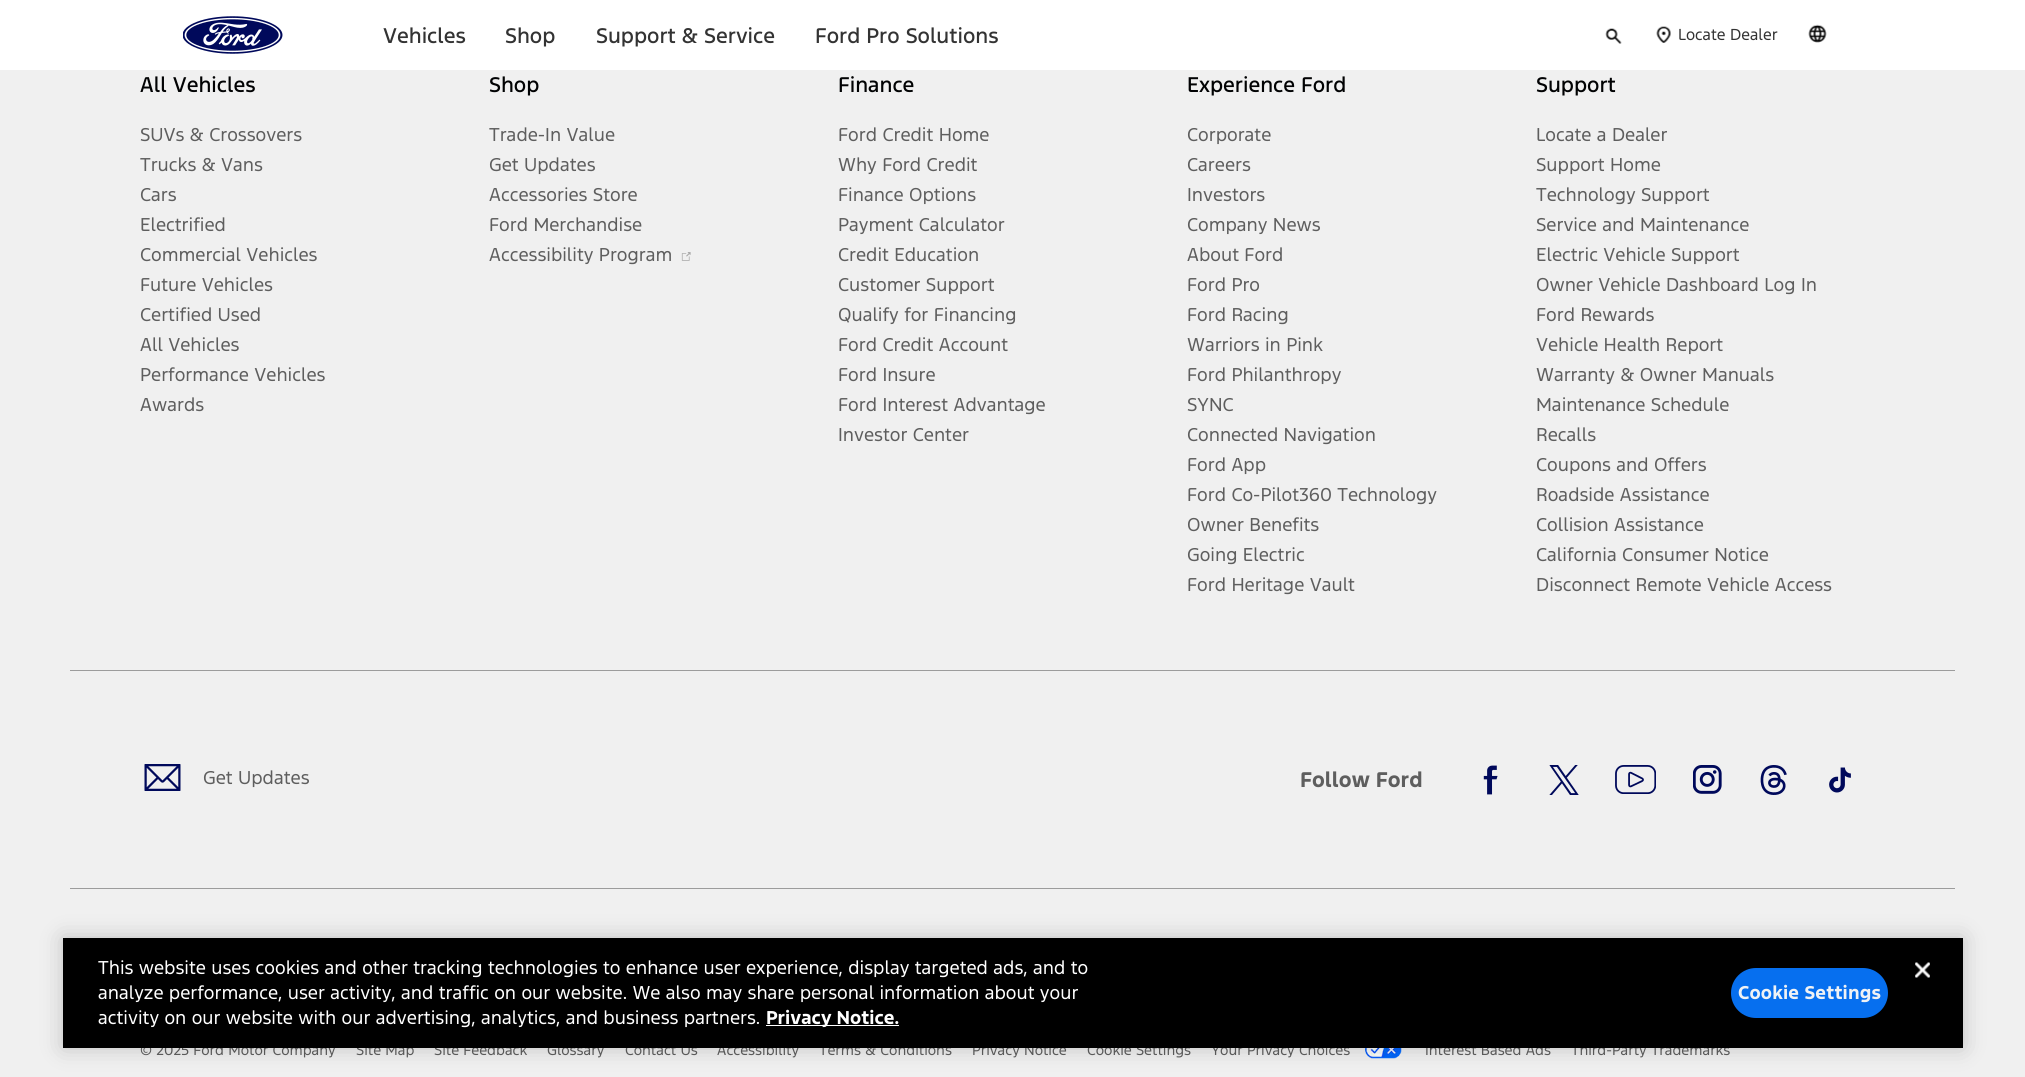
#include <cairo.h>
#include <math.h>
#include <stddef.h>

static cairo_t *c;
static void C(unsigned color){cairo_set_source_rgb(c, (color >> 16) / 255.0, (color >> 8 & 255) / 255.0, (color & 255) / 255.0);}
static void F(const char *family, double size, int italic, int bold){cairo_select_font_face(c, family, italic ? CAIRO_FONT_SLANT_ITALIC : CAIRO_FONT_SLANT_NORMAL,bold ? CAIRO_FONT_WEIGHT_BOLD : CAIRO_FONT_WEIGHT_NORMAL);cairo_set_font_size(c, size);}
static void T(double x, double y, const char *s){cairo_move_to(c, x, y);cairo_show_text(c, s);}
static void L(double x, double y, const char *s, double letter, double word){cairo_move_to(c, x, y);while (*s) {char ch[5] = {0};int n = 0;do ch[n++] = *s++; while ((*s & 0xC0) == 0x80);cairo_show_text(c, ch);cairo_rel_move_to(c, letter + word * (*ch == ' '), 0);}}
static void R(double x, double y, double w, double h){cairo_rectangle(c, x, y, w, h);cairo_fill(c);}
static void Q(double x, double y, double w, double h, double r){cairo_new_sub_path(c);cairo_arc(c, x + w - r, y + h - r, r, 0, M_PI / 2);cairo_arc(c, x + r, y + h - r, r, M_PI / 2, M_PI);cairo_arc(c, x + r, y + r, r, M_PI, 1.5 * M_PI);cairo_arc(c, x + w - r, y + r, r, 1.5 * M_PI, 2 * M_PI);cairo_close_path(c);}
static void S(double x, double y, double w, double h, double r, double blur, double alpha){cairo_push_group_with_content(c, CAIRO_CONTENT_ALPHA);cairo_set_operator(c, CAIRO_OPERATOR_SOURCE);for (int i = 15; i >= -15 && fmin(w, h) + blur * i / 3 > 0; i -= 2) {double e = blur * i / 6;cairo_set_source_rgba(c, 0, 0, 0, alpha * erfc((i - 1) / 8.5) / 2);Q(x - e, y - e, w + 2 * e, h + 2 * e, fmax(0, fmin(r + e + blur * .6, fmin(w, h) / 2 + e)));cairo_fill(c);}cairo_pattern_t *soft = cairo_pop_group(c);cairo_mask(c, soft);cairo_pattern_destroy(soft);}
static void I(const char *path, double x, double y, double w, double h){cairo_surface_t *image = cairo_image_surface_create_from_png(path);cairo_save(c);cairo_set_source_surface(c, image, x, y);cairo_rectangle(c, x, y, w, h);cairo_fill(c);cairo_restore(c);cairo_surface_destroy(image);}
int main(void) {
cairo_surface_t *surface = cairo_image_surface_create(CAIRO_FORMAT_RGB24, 2025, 1077);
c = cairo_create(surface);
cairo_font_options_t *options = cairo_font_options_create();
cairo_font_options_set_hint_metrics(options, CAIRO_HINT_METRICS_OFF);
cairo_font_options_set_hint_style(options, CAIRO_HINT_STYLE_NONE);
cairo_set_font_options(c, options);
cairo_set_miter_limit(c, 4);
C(0xf0f0f0);
cairo_paint(c);
C(0xffffff);
R(0,0,2025,70);
I("1.png",183,16,100,38);
F("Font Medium",20,0,0);
C(0x333333);
T(383,43,"Vehicles");
T(505,43,"Shop");
T(596,43,"Support & Service");
T(815,43,"Ford Pro Solutions");
I("2.png",1605,28,17,16);
I("3.png",1656,26,15,17);
F("Font",15,0,0);
T(1678,40,"Locate Dealer");
I("4.png",1808,24,19,19);
C(0x9c9c9c);
R(70,670,1885,1);
F("Font Medium",20,0,0);
C(0x010203);
T(140,92,"All Vehicles");
F("Font",17.5,0,0);
C(0x5e5e5e);
T(140,141,"SUVs & Crossovers");
T(140,171,"Trucks & Vans");
T(140,201,"Cars");
T(140,231,"Electrified");
T(140,261,"Commercial Vehicles");
T(140,291,"Future Vehicles");
T(140,321,"Certified Used");
T(140,351,"All Vehicles");
T(140,381,"Performance Vehicles");
T(140,411,"Awards");
F("Font Medium",20,0,0);
C(0x010203);
T(489,92,"Shop");
F("Font",17.5,0,0);
C(0x5e5e5e);
T(489,141,"Trade-In Value");
T(489,171,"Get Updates");
T(489,201,"Accessories Store");
T(489,231,"Ford Merchandise");
T(489,261,"Accessibility Program");
I("5.png",681,252,10,9);
F("Font Medium",20,0,0);
C(0x010203);
T(838,92,"Finance");
F("Font",17.5,0,0);
C(0x5e5e5e);
T(838,141,"Ford Credit Home");
T(838,171,"Why Ford Credit");
T(838,201,"Finance Options");
T(838,231,"Payment Calculator");
T(838,261,"Credit Education");
T(838,291,"Customer Support");
T(838,321,"Qualify for Financing");
T(838,351,"Ford Credit Account");
T(838,381,"Ford Insure");
T(838,411,"Ford Interest Advantage");
T(838,441,"Investor Center");
F("Font Medium",20,0,0);
C(0x010203);
T(1187,92,"Experience Ford");
F("Font",17.5,0,0);
C(0x5e5e5e);
T(1187,141,"Corporate");
T(1187,171,"Careers");
T(1187,201,"Investors");
T(1187,231,"Company News");
T(1187,261,"About Ford");
T(1187,291,"Ford Pro");
T(1187,321,"Ford Racing");
T(1187,351,"Warriors in Pink");
T(1187,381,"Ford Philanthropy");
T(1187,411,"SYNC");
T(1187,441,"Connected Navigation");
T(1187,471,"Ford App");
T(1187,501,"Ford Co-Pilot360 Technology");
T(1187,531,"Owner Benefits");
T(1187,561,"Going Electric");
T(1187,591,"Ford Heritage Vault");
F("Font Medium",20,0,0);
C(0x010203);
T(1536,92,"Support");
F("Font",17.5,0,0);
C(0x5e5e5e);
T(1536,141,"Locate a Dealer");
T(1536,171,"Support Home");
T(1536,201,"Technology Support");
T(1536,231,"Service and Maintenance");
T(1536,261,"Electric Vehicle Support");
T(1536,291,"Owner Vehicle Dashboard Log In");
T(1536,321,"Ford Rewards");
T(1536,351,"Vehicle Health Report");
T(1536,381,"Warranty & Owner Manuals");
T(1536,411,"Maintenance Schedule");
T(1536,441,"Recalls");
T(1536,471,"Coupons and Offers");
T(1536,501,"Roadside Assistance");
T(1536,531,"Collision Assistance");
T(1536,561,"California Consumer Notice");
T(1536,591,"Disconnect Remote Vehicle Access");
C(0x9c9c9c);
R(70,888,1885,1);
I("6.png",144,764,37,27);
C(0x5e5e5e);
T(203,784,"Get Updates");
F("Font",20,0,1);
T(1300,787,"Follow Ford");
I("7.png",1483,765,15,30);
I("8.png",1549,765,30,30);
I("9.png",1615,765,41,29);
I("10.png",1693,765,29,29);
I("11.png",1760,765,27,30);
I("12.png",1829,767,22,26);
F("Font",13.75,0,0);
T(140,1055,"© 2025 Ford Motor Company");
T(356,1055,"Site Map");
T(434,1055,"Site Feedback");
T(547,1055,"Glossary");
T(625,1055,"Contact Us");
T(717,1055,"Accessibility");
T(819,1055,"Terms & Conditions");
T(972,1055,"Privacy Notice");
T(1087,1055,"Cookie Settings");
T(1211,1055,"Your Privacy Choices");
I("13.png",1365,1048,37,11);
T(1425,1055,"Interest Based Ads");
T(1571,1055,"Third-Party Trademarks");
C(0x000000);
S(63,938,1900,110,0,11,.2);
C(0x000000);
R(63,938,1900,110);
F("Font",17.5,0,0);
C(0xffffff);
T(98,974,"This website uses cookies and other tracking technologies to enhance user experience, display targeted ads, and to");
T(98,999,"analyze performance, user activity, and traffic on our website. We also may share personal information about your");
T(98,1024,"activity on our website with our advertising, analytics, and business partners.");
R(766,1025,133,1);
F("Font",17.5,0,1);
T(766,1024,"Privacy Notice.");
C(0x066fef);
Q(1731,968,157,50,25);
cairo_fill(c);
C(0xeff2f5);
L(1738,999,"Cookie Settings",.2,0);
I("14.png",1915,962,15,16);
cairo_surface_write_to_png(surface, "o.png");
cairo_font_options_destroy(options);
cairo_destroy(c);
cairo_surface_destroy(surface);
return 0;
}
